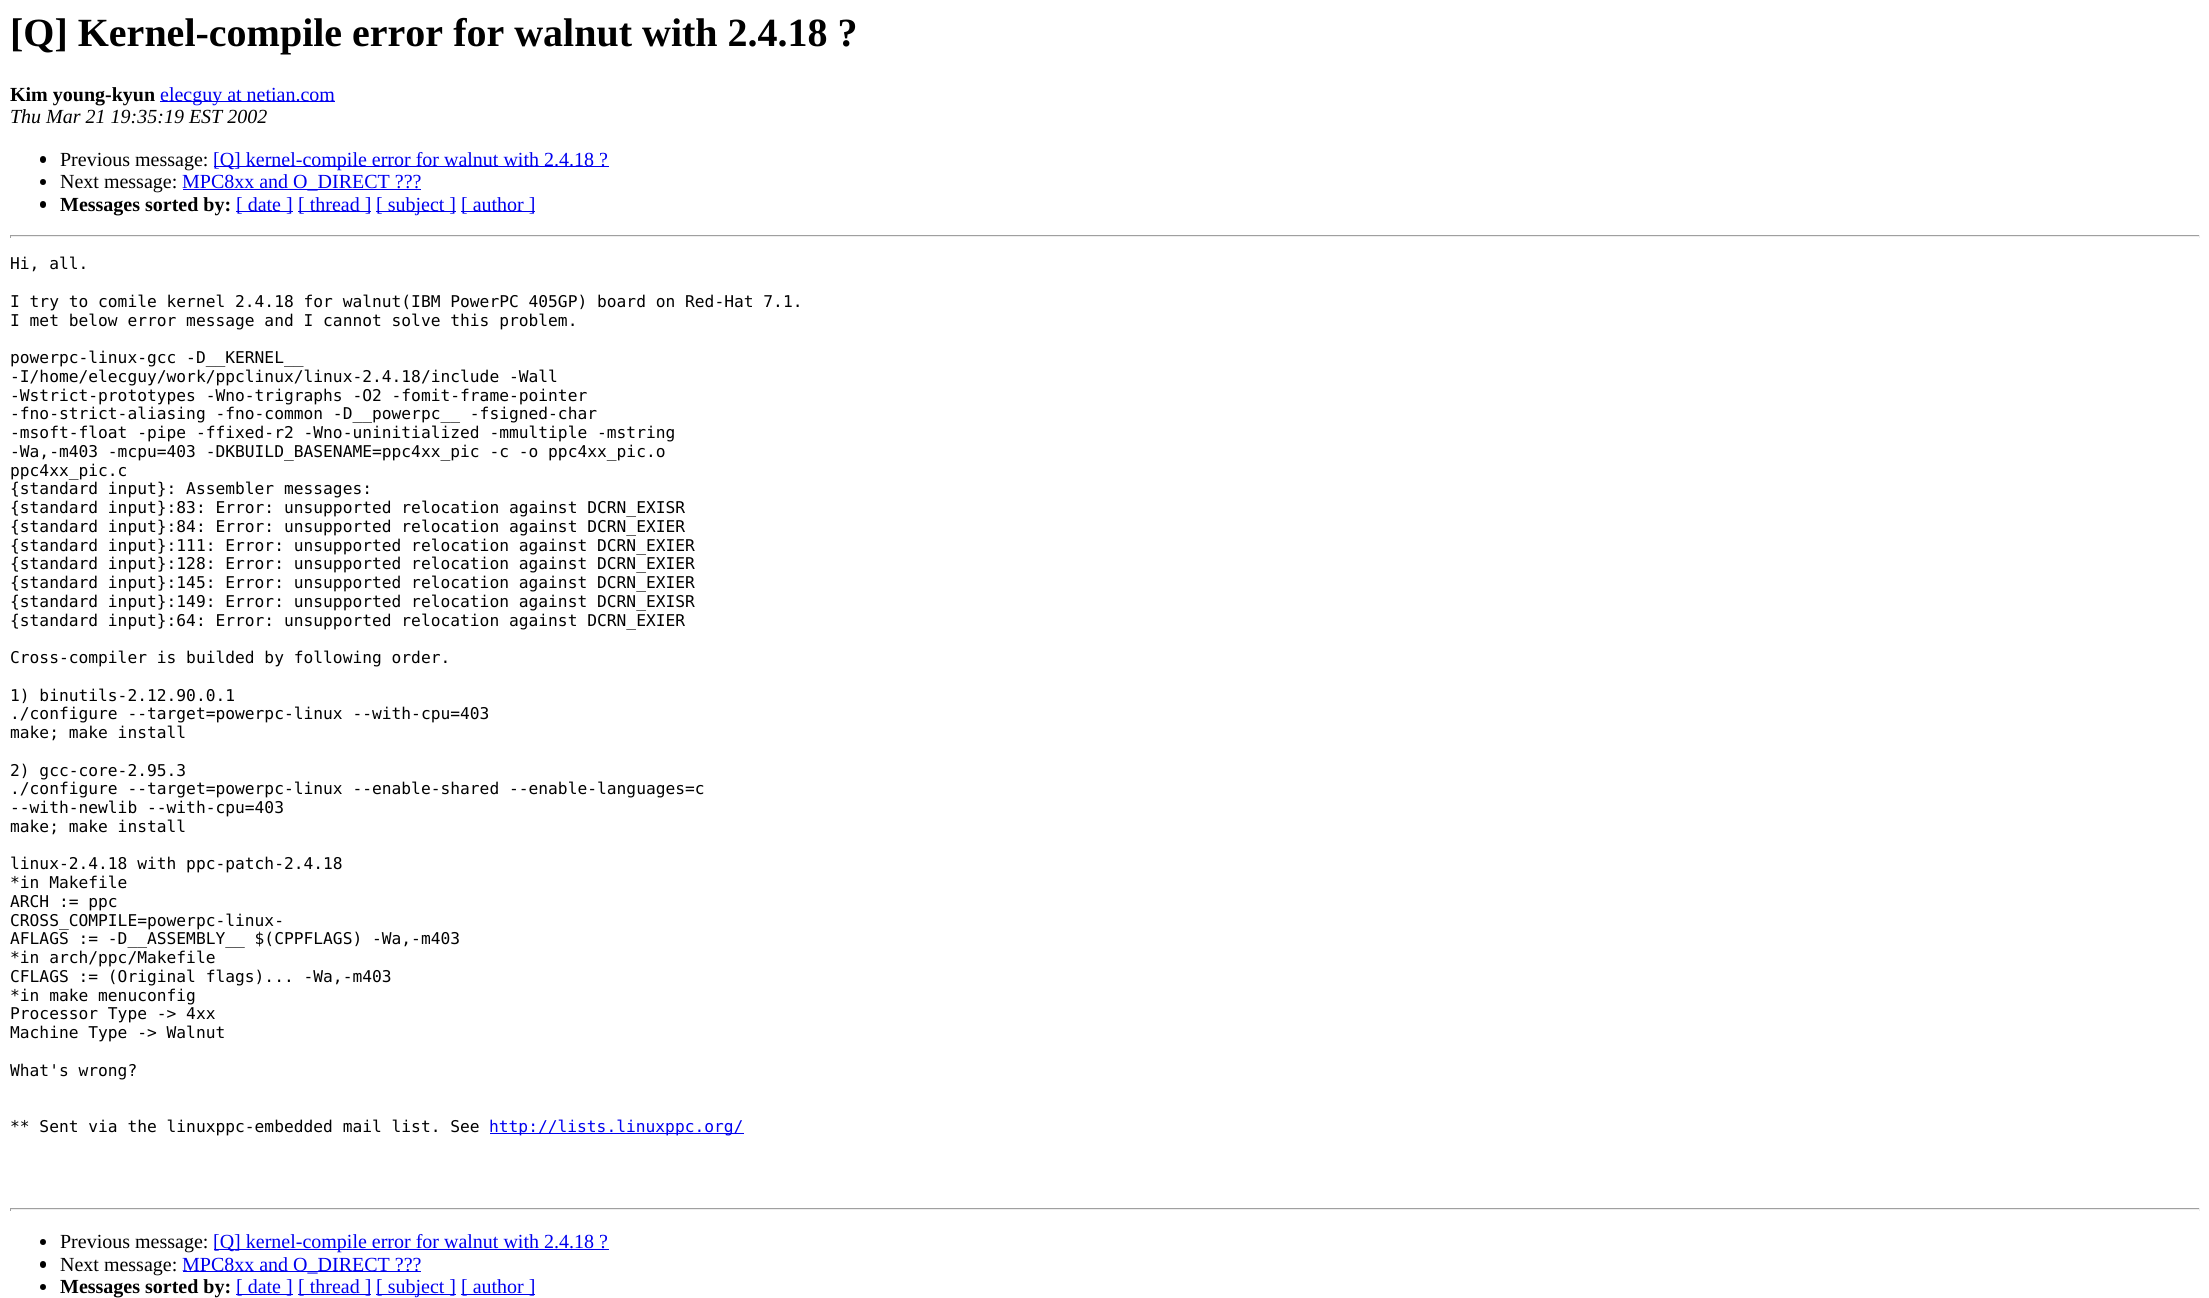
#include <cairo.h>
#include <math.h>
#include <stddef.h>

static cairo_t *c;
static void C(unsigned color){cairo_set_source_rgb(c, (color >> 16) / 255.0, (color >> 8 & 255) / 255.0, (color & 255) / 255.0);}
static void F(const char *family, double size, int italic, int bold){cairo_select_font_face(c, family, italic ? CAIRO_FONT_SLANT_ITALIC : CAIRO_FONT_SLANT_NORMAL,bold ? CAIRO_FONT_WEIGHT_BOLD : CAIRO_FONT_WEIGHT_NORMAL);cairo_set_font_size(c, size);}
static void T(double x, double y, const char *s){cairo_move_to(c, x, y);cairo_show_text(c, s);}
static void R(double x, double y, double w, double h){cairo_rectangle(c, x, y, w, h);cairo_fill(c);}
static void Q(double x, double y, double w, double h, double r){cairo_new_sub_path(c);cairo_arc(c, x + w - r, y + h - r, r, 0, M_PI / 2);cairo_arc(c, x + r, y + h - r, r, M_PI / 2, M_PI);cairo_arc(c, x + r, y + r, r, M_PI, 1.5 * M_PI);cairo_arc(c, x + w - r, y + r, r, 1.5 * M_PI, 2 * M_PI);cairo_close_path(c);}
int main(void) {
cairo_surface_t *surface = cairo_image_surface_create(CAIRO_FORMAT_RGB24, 2209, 1298);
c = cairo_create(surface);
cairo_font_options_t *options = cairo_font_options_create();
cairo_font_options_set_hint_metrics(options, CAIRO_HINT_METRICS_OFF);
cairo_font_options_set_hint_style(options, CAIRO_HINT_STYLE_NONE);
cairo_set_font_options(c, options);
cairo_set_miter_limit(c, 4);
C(0xffffff);
cairo_paint(c);
F("Liberation Serif",40,0,1);
C(0x000000);
T(10,46,"[Q] Kernel-compile error for walnut with 2.4.18 ?");
F("Liberation Serif",20,0,1);
T(10,101,"Kim young-kyun");
C(0x0000ee);
R(160,101,175,1);
F("Liberation Serif",20,0,0);
T(160,101,"elecguy at netian.com");
F("Liberation Serif",20,1,0);
C(0x000000);
T(10,123,"Thu Mar 21 19:35:19 EST 2002");
Q(40,156,6,7,3);
cairo_fill(c);
F("Liberation Serif",20,0,0);
T(60,166,"Previous message:");
C(0x0000ee);
R(214,166,395,1);
T(213,166,"[Q] kernel-compile error for walnut with 2.4.18 ?");
C(0x000000);
cairo_new_path(c);
cairo_arc(c,43,182,3,0,2 * M_PI);
cairo_fill(c);
T(60,188,"Next message:");
C(0x0000ee);
R(183,189,238,1);
T(182,188,"MPC8xx and O_DIRECT ?\077?");
C(0x000000);
Q(40,201,6,7,3);
cairo_fill(c);
F("Liberation Serif",20,0,1);
T(60,211,"Messages sorted by:");
C(0x0000ee);
R(236,211,57,1);
F("Liberation Serif",20,0,0);
T(236,211,"[ date ]");
R(298,211,73,1);
T(298,211,"[ thread ]");
R(376,211,80,1);
T(376,211,"[ subject ]");
R(461,211,74,1);
T(461,211,"[ author ]");
C(0x9f9f9f);
R(10,235,2190,1);
C(0xeeeeee);
R(2199,235,1,3);
R(10,236,2190,1);
C(0x9f9f9f);
R(10,235,1,3);
F("DejaVu Sans Mono",16.25,0,0);
C(0x000000);
T(10,269,"Hi, all.");
T(10,307,"I try to comile kernel 2.4.18 for walnut(IBM PowerPC 405GP) board on Red-Hat 7.1.");
T(10,326,"I met below error message and I cannot solve this problem.");
T(10,363,"powerpc-linux-gcc -D__KERNEL__");
T(10,382,"-I/home/elecguy/work/ppclinux/linux-2.4.18/include -Wall");
T(10,401,"-Wstrict-prototypes -Wno-trigraphs -O2 -fomit-frame-pointer");
T(10,419,"-fno-strict-aliasing -fno-common -D__powerpc__ -fsigned-char");
T(10,438,"-msoft-float -pipe -ffixed-r2 -Wno-uninitialized -mmultiple -mstring");
T(10,457,"-Wa,-m403 -mcpu=403 -DKBUILD_BASENAME=ppc4xx_pic -c -o ppc4xx_pic.o");
T(10,476,"ppc4xx_pic.c");
T(10,494,"{standard input}: Assembler messages:");
T(10,513,"{standard input}:83: Error: unsupported relocation against DCRN_EXISR");
T(10,532,"{standard input}:84: Error: unsupported relocation against DCRN_EXIER");
T(10,551,"{standard input}:111: Error: unsupported relocation against DCRN_EXIER");
T(10,569,"{standard input}:128: Error: unsupported relocation against DCRN_EXIER");
T(10,588,"{standard input}:145: Error: unsupported relocation against DCRN_EXIER");
T(10,607,"{standard input}:149: Error: unsupported relocation against DCRN_EXISR");
T(10,626,"{standard input}:64: Error: unsupported relocation against DCRN_EXIER");
T(10,663,"Cross-compiler is builded by following order.");
T(10,701,"1) binutils-2.12.90.0.1");
T(10,719,"./configure --target=powerpc-linux --with-cpu=403");
T(10,738,"make; make install");
T(10,776,"2) gcc-core-2.95.3");
T(10,794,"./configure --target=powerpc-linux --enable-shared --enable-languages=c");
T(10,813,"--with-newlib --with-cpu=403");
T(10,832,"make; make install");
T(10,869,"linux-2.4.18 with ppc-patch-2.4.18");
T(10,888,"*in Makefile");
T(10,907,"ARCH := ppc");
T(10,926,"CROSS_COMPILE=powerpc-linux-");
T(10,944,"AFLAGS := -D__ASSEMBLY__ $(CPPFLAGS) -Wa,-m403");
T(10,963,"*in arch/ppc/Makefile");
T(10,982,"CFLAGS := (Original flags)... -Wa,-m403");
T(10,1001,"*in make menuconfig");
T(10,1019,"Processor Type -> 4xx");
T(10,1038,"Machine Type -> Walnut");
T(10,1076,"What's wrong?");
T(10,1132,"** Sent via the linuxppc-embedded mail list. See");
C(0x0000ee);
R(490,1133,254,1);
T(489,1132,"http://lists.linuxppc.org/");
C(0x9f9f9f);
R(10,1208,2190,1);
C(0xeeeeee);
R(2199,1208,1,3);
R(10,1209,2190,1);
C(0x9f9f9f);
R(10,1208,1,3);
C(0x000000);
cairo_new_path(c);
cairo_arc(c,43,1242,3,0,2 * M_PI);
cairo_fill(c);
F("Liberation Serif",20,0,0);
T(60,1248,"Previous message:");
C(0x0000ee);
R(214,1249,395,1);
T(213,1248,"[Q] kernel-compile error for walnut with 2.4.18 ?");
C(0x000000);
Q(40,1261,6,7,3);
cairo_fill(c);
T(60,1271,"Next message:");
C(0x0000ee);
R(183,1271,238,1);
T(182,1271,"MPC8xx and O_DIRECT ?\077?");
C(0x000000);
cairo_new_path(c);
cairo_arc(c,43,1287,3,0,2 * M_PI);
cairo_fill(c);
F("Liberation Serif",20,0,1);
T(60,1293,"Messages sorted by:");
C(0x0000ee);
R(236,1294,57,1);
F("Liberation Serif",20,0,0);
T(236,1293,"[ date ]");
R(298,1294,73,1);
T(298,1293,"[ thread ]");
R(376,1294,80,1);
T(376,1293,"[ subject ]");
R(461,1294,74,1);
T(461,1293,"[ author ]");
cairo_surface_write_to_png(surface, "o.png");
cairo_font_options_destroy(options);
cairo_destroy(c);
cairo_surface_destroy(surface);
return 0;
}
